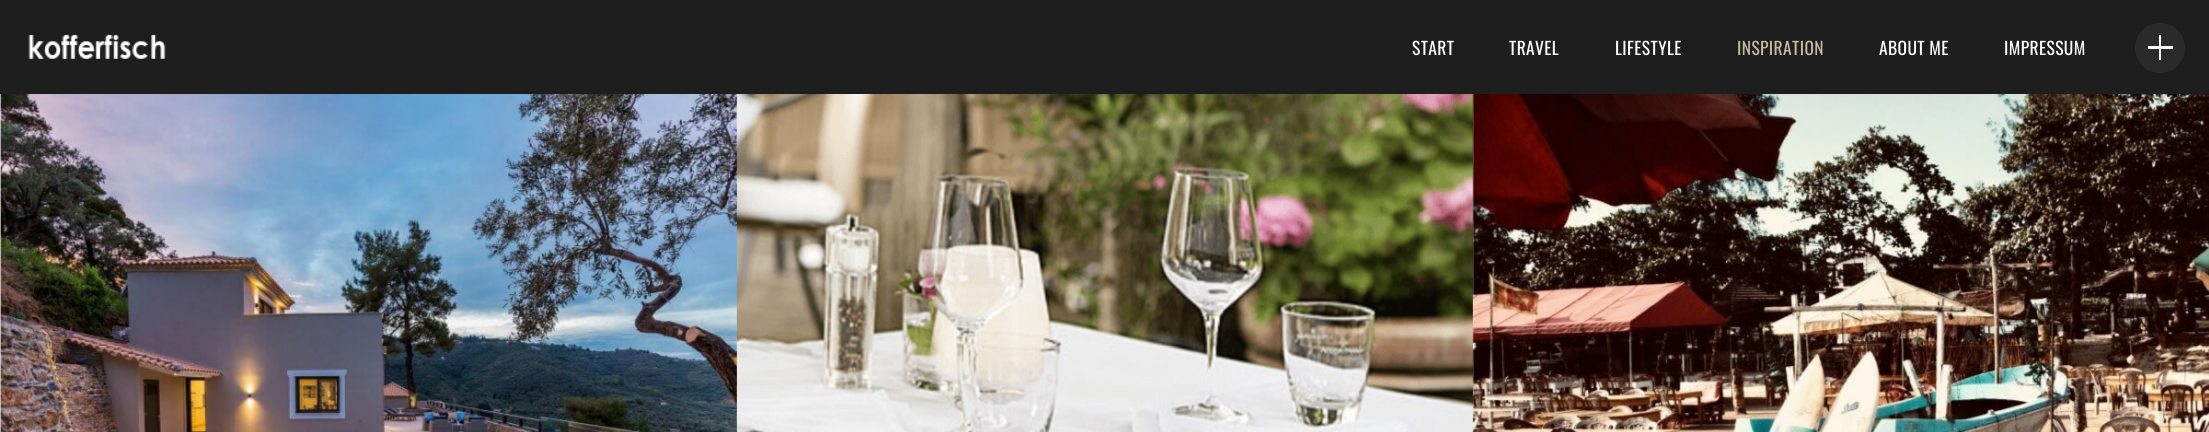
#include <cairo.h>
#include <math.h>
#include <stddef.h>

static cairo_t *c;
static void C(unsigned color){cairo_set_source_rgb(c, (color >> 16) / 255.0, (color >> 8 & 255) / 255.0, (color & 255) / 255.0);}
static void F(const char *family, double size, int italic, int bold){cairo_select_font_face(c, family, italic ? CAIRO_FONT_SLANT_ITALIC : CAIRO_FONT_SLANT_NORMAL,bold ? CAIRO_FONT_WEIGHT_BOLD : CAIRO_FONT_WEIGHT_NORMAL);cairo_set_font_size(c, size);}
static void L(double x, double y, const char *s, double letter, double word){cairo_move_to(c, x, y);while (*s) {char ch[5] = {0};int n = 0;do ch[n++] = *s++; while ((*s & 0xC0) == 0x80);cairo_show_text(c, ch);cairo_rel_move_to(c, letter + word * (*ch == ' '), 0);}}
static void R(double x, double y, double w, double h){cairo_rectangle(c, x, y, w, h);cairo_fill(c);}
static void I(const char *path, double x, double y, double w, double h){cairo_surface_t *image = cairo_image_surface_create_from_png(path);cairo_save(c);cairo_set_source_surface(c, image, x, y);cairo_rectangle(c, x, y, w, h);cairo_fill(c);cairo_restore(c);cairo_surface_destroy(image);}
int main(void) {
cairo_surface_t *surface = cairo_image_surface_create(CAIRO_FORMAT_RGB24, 2209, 432);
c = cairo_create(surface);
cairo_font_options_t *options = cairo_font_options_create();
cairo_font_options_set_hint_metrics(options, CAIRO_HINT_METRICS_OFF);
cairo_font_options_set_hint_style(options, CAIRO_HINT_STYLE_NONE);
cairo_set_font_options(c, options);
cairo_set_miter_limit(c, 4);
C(0xeeeeee);
cairo_paint(c);
C(0x1e1e1e);
R(0,0,2209,94);
I("1.png",28,34,138,25);
F("Oswald",17.5,0,0);
C(0xffffff);
L(1412,55,"START",.4,0);
L(1509,55,"TRAVEL",.4,0);
L(1615,55,"LIFESTYLE",.4,0);
C(0xc7ba9c);
L(1737,55,"INSPIRATION",.4,0);
C(0xffffff);
L(1879,55,"ABOUT ME",.4,0);
L(2004,55,"IMPRESSUM",.4,0);
C(0x2b2b2b);
cairo_new_path(c);
cairo_arc(c,2160,48,25,0,2 * M_PI);
cairo_fill(c);
C(0xffffff);
R(2148,46,25,3);
R(2159,35,2,25);
I("2.png",0,94,737,338);
I("3.png",736,94,737,338);
I("4.png",1472,94,737,338);
cairo_surface_write_to_png(surface, "o.png");
cairo_font_options_destroy(options);
cairo_destroy(c);
cairo_surface_destroy(surface);
return 0;
}
